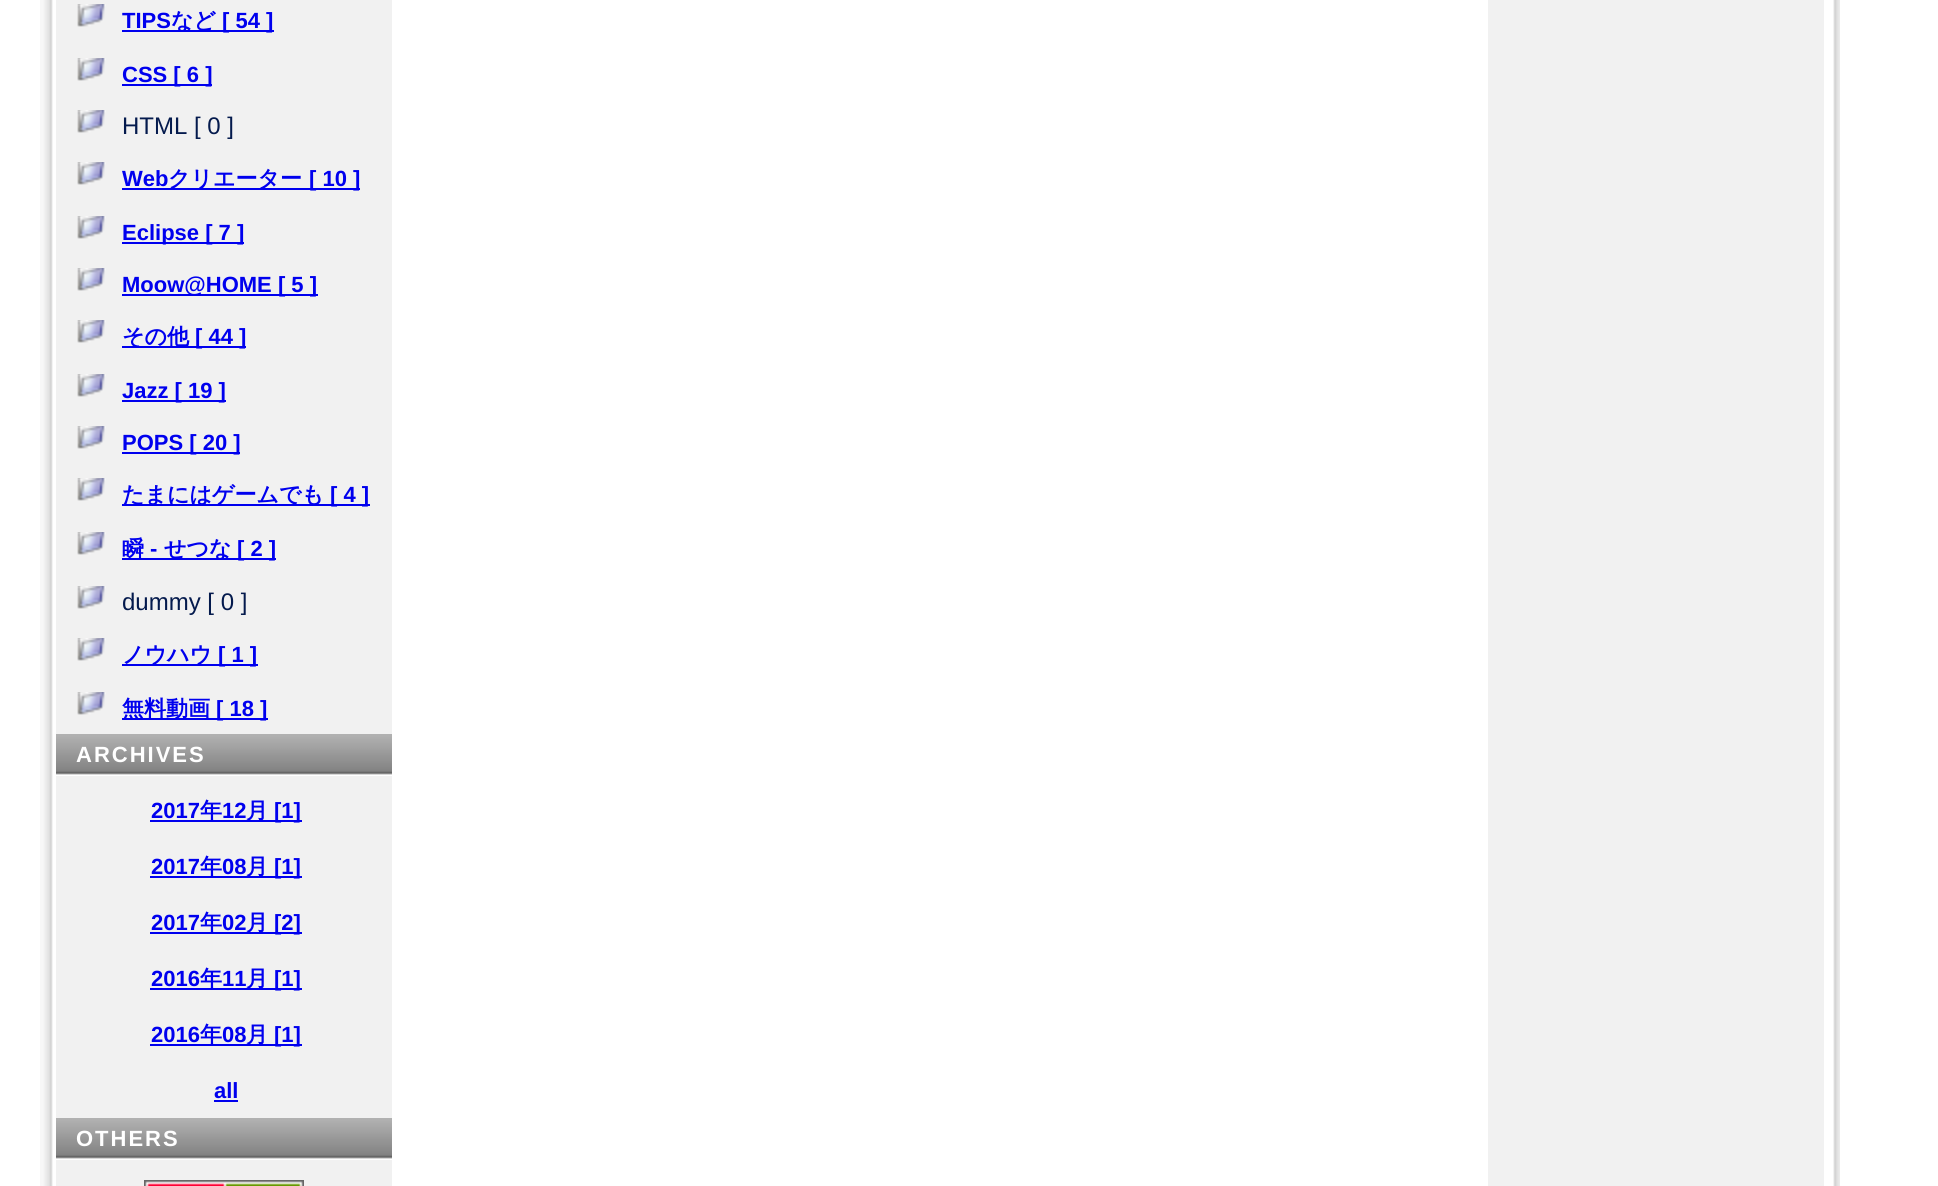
#include <cairo.h>
#include <math.h>
#include <stddef.h>

static cairo_t *c;
static void C(unsigned color){cairo_set_source_rgb(c, (color >> 16) / 255.0, (color >> 8 & 255) / 255.0, (color & 255) / 255.0);}
static void F(const char *family, double size, int italic, int bold){cairo_select_font_face(c, family, italic ? CAIRO_FONT_SLANT_ITALIC : CAIRO_FONT_SLANT_NORMAL,bold ? CAIRO_FONT_WEIGHT_BOLD : CAIRO_FONT_WEIGHT_NORMAL);cairo_set_font_size(c, size);}
static void T(double x, double y, const char *s){cairo_move_to(c, x, y);cairo_show_text(c, s);}
static void L(double x, double y, const char *s, double letter, double word){cairo_move_to(c, x, y);while (*s) {char ch[5] = {0};int n = 0;do ch[n++] = *s++; while ((*s & 0xC0) == 0x80);cairo_show_text(c, ch);cairo_rel_move_to(c, letter + word * (*ch == ' '), 0);}}
static void R(double x, double y, double w, double h){cairo_rectangle(c, x, y, w, h);cairo_fill(c);}
static void I(const char *path, double x, double y, double w, double h){cairo_surface_t *image = cairo_image_surface_create_from_png(path);cairo_save(c);cairo_set_source_surface(c, image, x, y);cairo_rectangle(c, x, y, w, h);cairo_fill(c);cairo_restore(c);cairo_surface_destroy(image);}
int main(void) {
cairo_surface_t *surface = cairo_image_surface_create(CAIRO_FORMAT_RGB24, 1938, 1186);
c = cairo_create(surface);
cairo_font_options_t *options = cairo_font_options_create();
cairo_font_options_set_hint_metrics(options, CAIRO_HINT_METRICS_OFF);
cairo_font_options_set_hint_style(options, CAIRO_HINT_STYLE_NONE);
cairo_set_font_options(c, options);
cairo_set_miter_limit(c, 4);
C(0xffffff);
cairo_paint(c);
I("1.png",40,0,13,1186);
C(0xf1f1f1);
R(56,0,336,1186);
I("2.png",77,4,29,23);
F("Liberation Sans",22,0,1);
C(0x0000ee);
T(122,28,"TIPS");
R(122,30,152,2);
F("WenQuanYi Zen Hei",22,0,1);
T(171,28,"など");
F("Liberation Sans",22,0,1);
T(222,28,"[ 54 ]");
I("2.png",77,58,29,23);
R(122,84,90,2);
T(122,82,"CSS [ 6 ]");
I("2.png",77,110,29,23);
F("Liberation Sans",24,0,0);
C(0x041a4d);
T(122,134,"HTML [ 0 ]");
I("2.png",77,162,29,23);
F("Liberation Sans",22,0,1);
C(0x0000ee);
T(122,186,"Web");
R(122,188,238,2);
F("WenQuanYi Zen Hei",22,0,1);
T(168,186,"クリエーター");
F("Liberation Sans",22,0,1);
T(309,186,"[ 10 ]");
I("2.png",77,216,29,23);
R(122,242,122,2);
T(122,240,"Eclipse [ 7 ]");
I("2.png",77,268,29,23);
R(122,294,196,2);
T(122,292,"Moow@HOME [ 5 ]");
I("2.png",77,320,29,23);
R(122,346,124,2);
F("WenQuanYi Zen Hei",22,0,1);
T(122,344,"その他");
F("Liberation Sans",22,0,1);
T(195,344,"[ 44 ]");
I("2.png",77,374,29,23);
R(122,400,104,2);
T(122,398,"Jazz [ 19 ]");
I("2.png",77,426,29,23);
R(122,452,118,2);
T(122,450,"POPS [ 20 ]");
I("2.png",77,478,29,23);
R(122,504,248,2);
F("WenQuanYi Zen Hei",22,0,1);
T(122,502,"たまにはゲームでも");
F("Liberation Sans",22,0,1);
T(330,502,"[ 4 ]");
I("2.png",77,532,29,23);
R(122,558,154,2);
F("WenQuanYi Zen Hei",22,0,1);
T(122,556,"瞬");
F("Liberation Sans",22,0,1);
T(150,556,"-");
F("WenQuanYi Zen Hei",22,0,1);
T(164,556,"せつな");
F("Liberation Sans",22,0,1);
T(237,556,"[ 2 ]");
I("2.png",77,586,29,23);
F("Liberation Sans",24,0,0);
C(0x041a4d);
T(122,610,"dummy [ 0 ]");
I("2.png",77,638,29,23);
C(0x0000ee);
R(122,664,136,2);
F("WenQuanYi Zen Hei",22,0,1);
T(122,662,"ノウハウ");
F("Liberation Sans",22,0,1);
T(218,662,"[ 1 ]");
I("2.png",77,692,29,23);
R(122,718,146,2);
F("WenQuanYi Zen Hei",22,0,1);
T(122,716,"無料動画");
F("Liberation Sans",22,0,1);
T(216,716,"[ 18 ]");
I("3.png",56,734,336,42);
C(0xffffff);
L(76,762,"ARCHIVES",2,0);
C(0x0000ee);
T(151,818,"2017");
R(150,820,152,2);
F("WenQuanYi Zen Hei",22,0,1);
T(200,818,"年");
F("Liberation Sans",22,0,1);
T(222,818,"12");
F("WenQuanYi Zen Hei",22,0,1);
T(246,818,"月");
F("Liberation Sans",22,0,1);
T(274,818,"[1]");
T(151,874,"2017");
R(150,876,152,2);
F("WenQuanYi Zen Hei",22,0,1);
T(200,874,"年");
F("Liberation Sans",22,0,1);
T(222,874,"08");
F("WenQuanYi Zen Hei",22,0,1);
T(246,874,"月");
F("Liberation Sans",22,0,1);
T(274,874,"[1]");
T(151,930,"2017");
R(150,932,152,2);
F("WenQuanYi Zen Hei",22,0,1);
T(200,930,"年");
F("Liberation Sans",22,0,1);
T(222,930,"02");
F("WenQuanYi Zen Hei",22,0,1);
T(246,930,"月");
F("Liberation Sans",22,0,1);
T(274,930,"[2]");
T(151,986,"2016");
R(150,988,152,2);
F("WenQuanYi Zen Hei",22,0,1);
T(200,986,"年");
F("Liberation Sans",22,0,1);
T(222,986,"11");
F("WenQuanYi Zen Hei",22,0,1);
T(246,986,"月");
F("Liberation Sans",22,0,1);
T(274,986,"[1]");
T(151,1042,"2016");
R(150,1044,152,2);
F("WenQuanYi Zen Hei",22,0,1);
T(200,1042,"年");
F("Liberation Sans",22,0,1);
T(222,1042,"08");
F("WenQuanYi Zen Hei",22,0,1);
T(246,1042,"月");
F("Liberation Sans",22,0,1);
T(274,1042,"[1]");
T(214,1098,"all");
R(214,1100,24,2);
I("3.png",56,1118,336,42);
C(0xffffff);
L(76,1146,"OTHERS",2,0);
I("4.png",144,1180,160,6);
C(0xf1f1f1);
R(1488,0,336,1186);
I("5.png",1833,0,7,1186);
cairo_surface_write_to_png(surface, "o.png");
cairo_font_options_destroy(options);
cairo_destroy(c);
cairo_surface_destroy(surface);
return 0;
}
